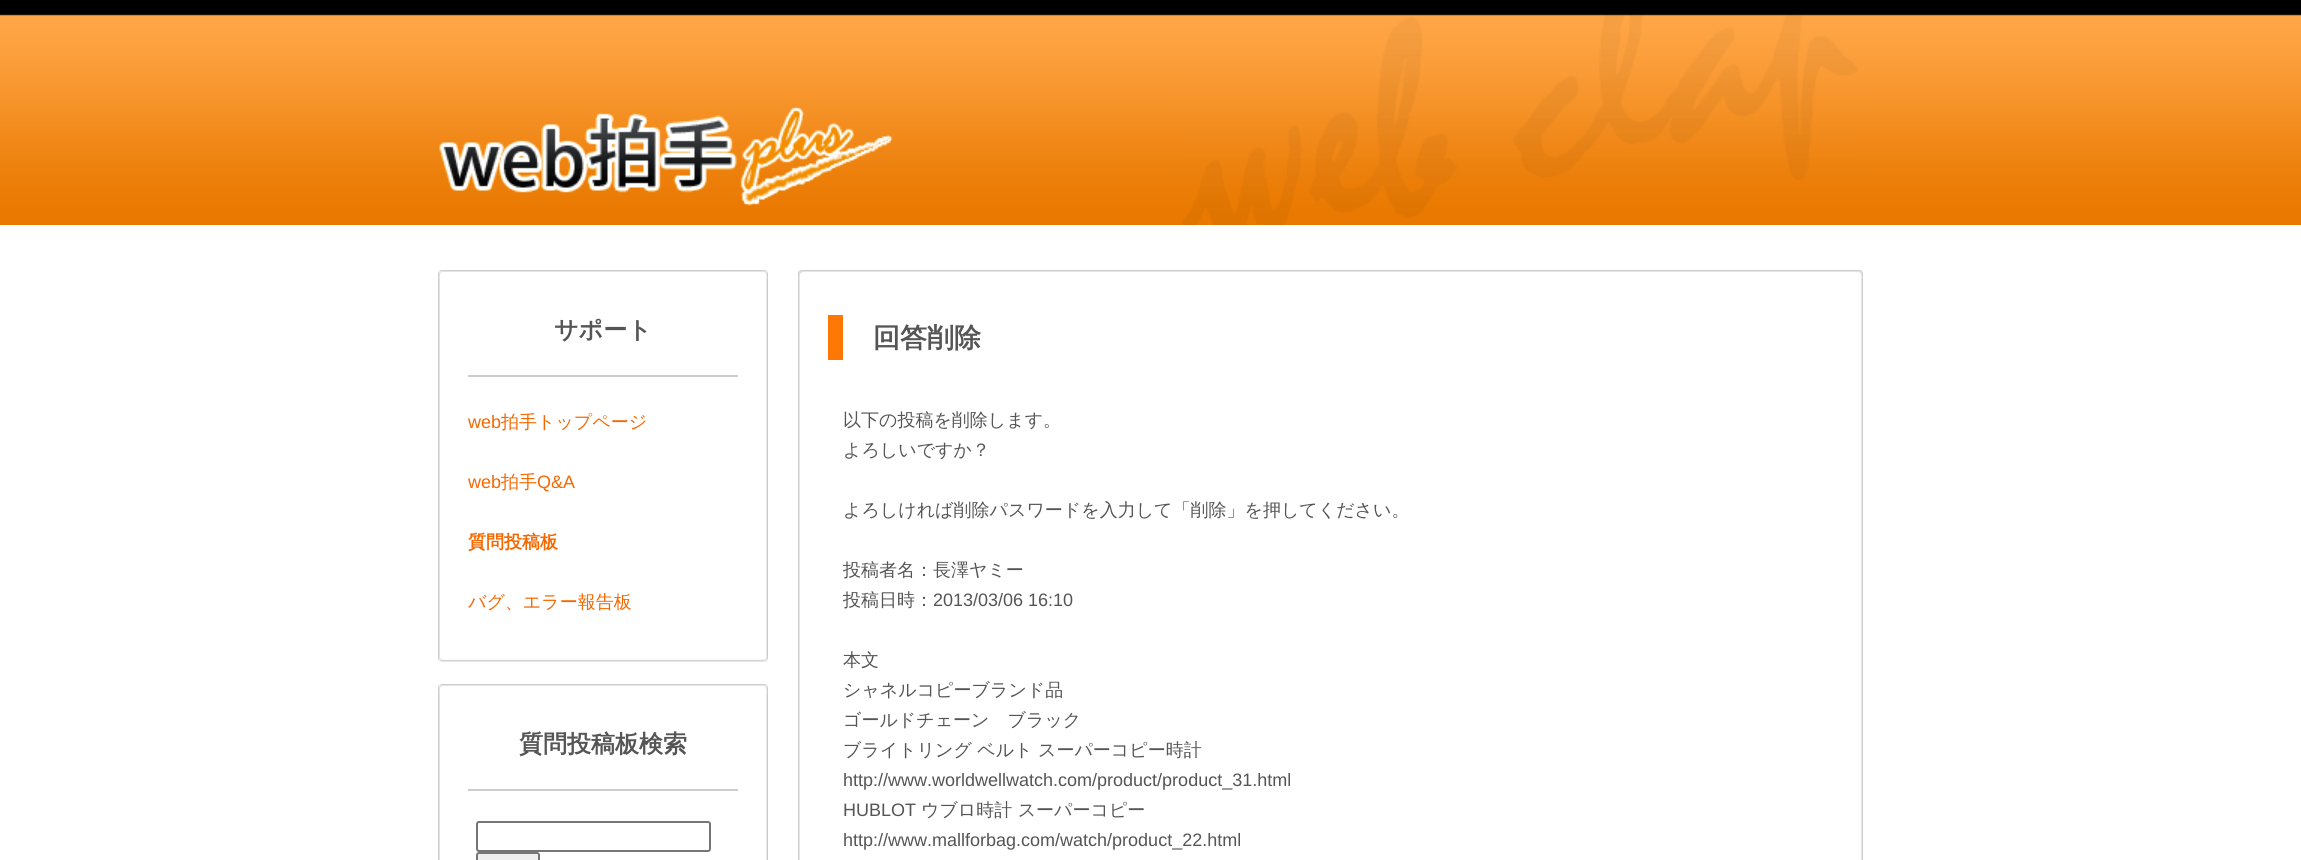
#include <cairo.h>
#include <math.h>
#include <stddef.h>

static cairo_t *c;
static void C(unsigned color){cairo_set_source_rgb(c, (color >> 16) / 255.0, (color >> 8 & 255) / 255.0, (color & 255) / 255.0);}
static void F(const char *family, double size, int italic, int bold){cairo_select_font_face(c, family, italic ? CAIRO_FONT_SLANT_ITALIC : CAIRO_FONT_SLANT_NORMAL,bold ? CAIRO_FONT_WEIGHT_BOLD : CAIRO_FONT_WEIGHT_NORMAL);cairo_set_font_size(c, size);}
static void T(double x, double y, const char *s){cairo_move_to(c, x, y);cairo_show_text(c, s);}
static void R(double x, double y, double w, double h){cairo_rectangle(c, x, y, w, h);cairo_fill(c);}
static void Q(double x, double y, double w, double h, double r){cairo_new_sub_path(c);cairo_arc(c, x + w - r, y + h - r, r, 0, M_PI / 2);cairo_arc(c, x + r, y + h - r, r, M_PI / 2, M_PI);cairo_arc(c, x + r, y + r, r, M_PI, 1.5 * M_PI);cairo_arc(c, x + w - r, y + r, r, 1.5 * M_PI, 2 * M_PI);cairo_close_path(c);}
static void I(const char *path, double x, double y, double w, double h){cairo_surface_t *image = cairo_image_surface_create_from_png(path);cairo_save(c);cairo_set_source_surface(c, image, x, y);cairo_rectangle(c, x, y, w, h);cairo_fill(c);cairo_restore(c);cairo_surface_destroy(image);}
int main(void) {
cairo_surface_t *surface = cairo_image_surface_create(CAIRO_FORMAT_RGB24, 2301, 860);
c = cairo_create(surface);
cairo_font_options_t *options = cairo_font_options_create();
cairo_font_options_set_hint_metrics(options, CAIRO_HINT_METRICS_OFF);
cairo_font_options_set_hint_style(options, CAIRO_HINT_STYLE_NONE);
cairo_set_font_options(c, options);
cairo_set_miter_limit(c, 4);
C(0xffffff);
cairo_paint(c);
I("1.png",0,0,2301,225);
I("2.png",1182,15,676,210);
I("3.png",439,106,454,100);
I("5.png",438,277,330,377);
I("4.png",438,270,330,8);
F("WenQuanYi Zen Hei",24,0,1);
C(0x555555);
T(554,338,"サポート");
C(0xcccccc);
R(468,375,270,2);
F("Liberation Sans",18,0,0);
C(0xf66700);
T(468,428,"web");
F("WenQuanYi Zen Hei Medium",18,0,0);
T(501,428,"拍手トップページ");
F("Liberation Sans",18,0,0);
T(468,488,"web");
F("WenQuanYi Zen Hei Medium",18,0,0);
T(501,488,"拍手");
F("Liberation Sans",18,0,0);
T(537,488,"Q&A");
F("WenQuanYi Zen Hei",18,0,1);
T(468,548,"質問投稿板");
F("WenQuanYi Zen Hei Medium",18,0,0);
T(468,608,"バグ、エラー報告板");
I("6.png",438,654,330,8);
I("7.png",438,691,330,169);
I("4.png",438,684,330,8);
F("WenQuanYi Zen Hei",24,0,1);
C(0x555555);
T(519,752,"質問投稿板検索");
C(0xcccccc);
R(468,789,270,2);
Q(477,822,233,29,2);
C(0x767676);
cairo_stroke(c);
C(0xefefef);
Q(477,853,62,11,2);
cairo_fill_preserve(c);
C(0x767676);
cairo_stroke(c);
I("9.png",798,277,1065,583);
I("8.png",798,270,1065,8);
C(0xff7705);
R(828,315,15,45);
F("WenQuanYi Zen Hei",27,0,1);
C(0x555555);
T(873,347,"回答削除");
F("WenQuanYi Zen Hei Medium",18,0,0);
T(843,426,"以下の投稿を削除します。");
T(843,456,"よろしいですか？");
T(843,516,"よろしければ削除パスワードを入力して「削除」を押してください。");
T(843,576,"投稿者名：長澤ヤミー");
T(843,606,"投稿日時：");
F("Liberation Sans",18,0,0);
T(933,606,"2013/03/06 16:10");
F("WenQuanYi Zen Hei Medium",18,0,0);
T(843,666,"本文");
T(843,696,"シャネルコピーブランド品");
T(843,726,"ゴールドチェーン　ブラック");
T(843,756,"ブライトリング ベルト スーパーコピー時計");
F("Liberation Sans",18,0,0);
T(843,786,"http://www.worldwellwatch.com/product/product_31.html");
T(843,816,"HUBLOT");
F("WenQuanYi Zen Hei Medium",18,0,0);
T(921,816,"ウブロ時計 スーパーコピー");
F("Liberation Sans",18,0,0);
T(843,846,"http://www.mallforbag.com/watch/product_22.html");
cairo_surface_write_to_png(surface, "o.png");
cairo_font_options_destroy(options);
cairo_destroy(c);
cairo_surface_destroy(surface);
return 0;
}
